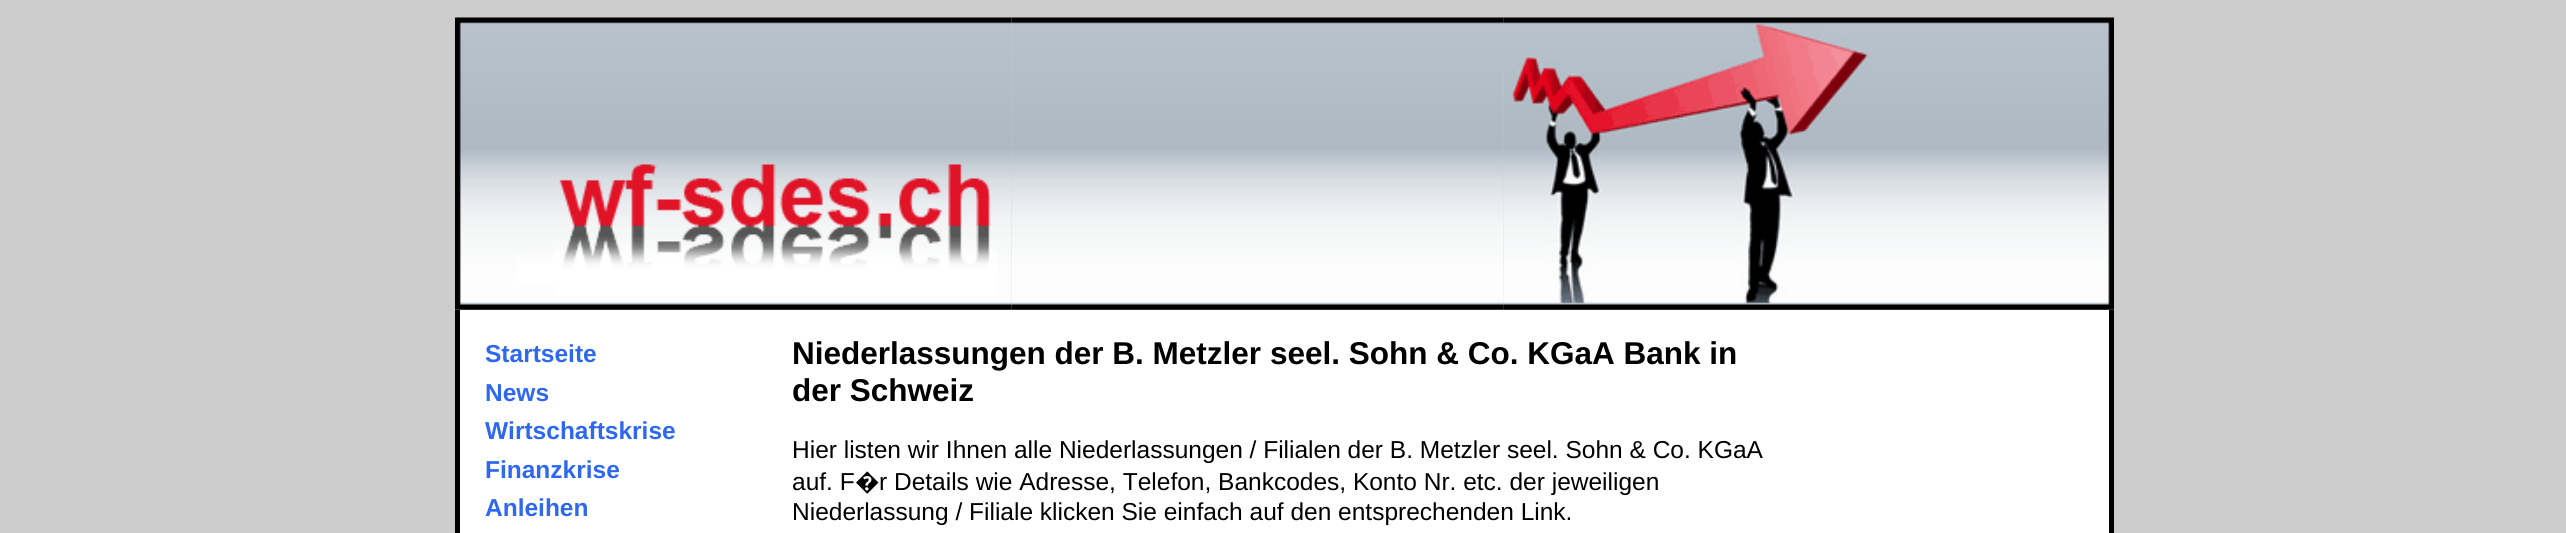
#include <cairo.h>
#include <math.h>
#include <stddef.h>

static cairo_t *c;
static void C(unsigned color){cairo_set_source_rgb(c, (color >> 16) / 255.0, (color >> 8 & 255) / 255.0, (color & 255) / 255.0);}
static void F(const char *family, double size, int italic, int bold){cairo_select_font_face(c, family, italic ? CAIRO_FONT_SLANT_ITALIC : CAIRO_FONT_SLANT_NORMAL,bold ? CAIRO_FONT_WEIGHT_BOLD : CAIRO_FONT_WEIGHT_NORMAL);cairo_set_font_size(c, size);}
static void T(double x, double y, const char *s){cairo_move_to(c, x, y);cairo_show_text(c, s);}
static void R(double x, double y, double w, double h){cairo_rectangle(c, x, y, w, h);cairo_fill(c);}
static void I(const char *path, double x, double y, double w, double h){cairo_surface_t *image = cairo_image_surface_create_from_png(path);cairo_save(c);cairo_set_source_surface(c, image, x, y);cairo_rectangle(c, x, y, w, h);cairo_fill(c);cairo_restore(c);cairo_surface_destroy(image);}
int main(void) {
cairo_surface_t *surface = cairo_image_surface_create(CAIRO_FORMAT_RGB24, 2566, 533);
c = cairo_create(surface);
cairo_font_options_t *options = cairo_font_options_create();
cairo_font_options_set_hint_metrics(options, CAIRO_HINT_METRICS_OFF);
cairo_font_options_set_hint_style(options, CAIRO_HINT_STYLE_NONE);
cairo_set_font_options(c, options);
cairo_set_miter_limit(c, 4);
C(0xcccccc);
cairo_paint(c);
I("1.png",455,17,557,293);
I("2.png",1011,17,493,293);
I("3.png",1503,17,611,293);
C(0xffffff);
R(460,310,1649,223);
C(0x000000);
R(2109,310,5,223);
R(455,310,5,223);
F("Liberation Sans",24.5,0,1);
C(0x2e68f1);
T(485,362,"Startseite");
T(485,401,"News");
T(485,439,"Wirtschaftskrise");
T(485,478,"Finanzkrise");
T(485,516,"Anleihen");
F("Liberation Sans",31.5,0,1);
C(0x000000);
T(792,364,"Niederlassungen der B. Metzler seel. Sohn & Co. KGaA Bank in");
T(792,401,"der Schweiz");
F("Liberation Sans",24.5,0,0);
T(792,458,"Hier listen wir Ihnen alle Niederlassungen / Filialen der B. Metzler seel. Sohn & Co. KGaA");
T(792,490,"auf. F");
F("Noto Sans",24.5,0,0);
T(855,490,"�");
F("Liberation Sans",24.5,0,0);
T(879,490,"r Details wie Adresse, Telefon, Bankcodes, Konto Nr. etc. der jeweiligen");
T(792,520,"Niederlassung / Filiale klicken Sie einfach auf den entsprechenden Link.");
cairo_surface_write_to_png(surface, "o.png");
cairo_font_options_destroy(options);
cairo_destroy(c);
cairo_surface_destroy(surface);
return 0;
}
